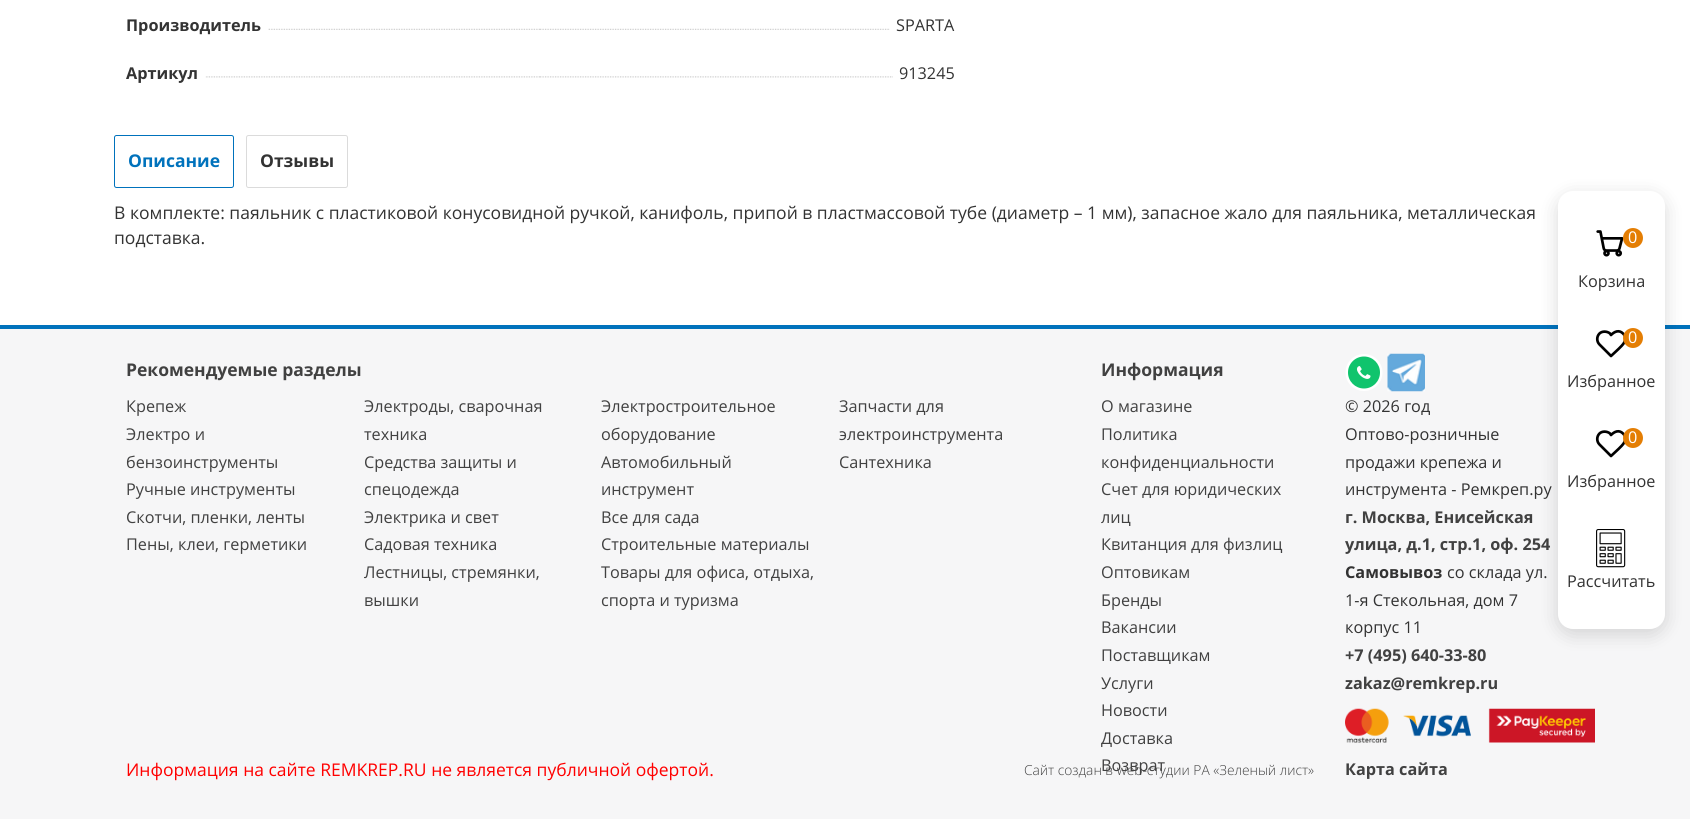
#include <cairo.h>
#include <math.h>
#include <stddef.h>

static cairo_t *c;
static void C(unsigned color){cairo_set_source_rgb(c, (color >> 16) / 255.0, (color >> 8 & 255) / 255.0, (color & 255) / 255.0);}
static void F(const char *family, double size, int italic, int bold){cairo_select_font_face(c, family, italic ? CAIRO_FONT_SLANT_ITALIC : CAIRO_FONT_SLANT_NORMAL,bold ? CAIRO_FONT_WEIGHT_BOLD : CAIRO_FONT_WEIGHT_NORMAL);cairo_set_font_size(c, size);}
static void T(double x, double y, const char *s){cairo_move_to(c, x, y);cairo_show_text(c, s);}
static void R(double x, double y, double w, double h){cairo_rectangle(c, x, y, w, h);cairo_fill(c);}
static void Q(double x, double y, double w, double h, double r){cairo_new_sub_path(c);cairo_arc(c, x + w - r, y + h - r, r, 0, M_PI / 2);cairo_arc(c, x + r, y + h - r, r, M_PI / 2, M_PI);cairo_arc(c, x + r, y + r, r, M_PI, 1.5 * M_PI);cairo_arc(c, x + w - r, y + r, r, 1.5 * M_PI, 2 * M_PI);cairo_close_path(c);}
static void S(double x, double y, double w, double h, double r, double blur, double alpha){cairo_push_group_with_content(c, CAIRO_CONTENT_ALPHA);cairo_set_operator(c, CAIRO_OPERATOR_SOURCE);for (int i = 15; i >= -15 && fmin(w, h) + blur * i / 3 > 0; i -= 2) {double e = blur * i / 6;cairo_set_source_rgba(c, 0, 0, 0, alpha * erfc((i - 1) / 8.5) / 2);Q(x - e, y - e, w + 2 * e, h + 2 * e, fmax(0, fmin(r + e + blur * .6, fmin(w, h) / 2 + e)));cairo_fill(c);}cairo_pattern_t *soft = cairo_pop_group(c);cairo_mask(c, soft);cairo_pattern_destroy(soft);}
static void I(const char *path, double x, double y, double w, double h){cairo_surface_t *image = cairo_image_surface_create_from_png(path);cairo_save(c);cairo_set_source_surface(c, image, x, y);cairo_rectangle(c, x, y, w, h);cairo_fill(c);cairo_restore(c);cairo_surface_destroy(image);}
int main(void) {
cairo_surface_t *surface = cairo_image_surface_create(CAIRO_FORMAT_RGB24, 1690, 819);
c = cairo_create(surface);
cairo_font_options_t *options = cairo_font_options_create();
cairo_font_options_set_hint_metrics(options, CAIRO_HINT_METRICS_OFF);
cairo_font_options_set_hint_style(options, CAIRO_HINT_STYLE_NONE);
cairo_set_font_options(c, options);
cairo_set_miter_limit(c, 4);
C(0xffffff);
cairo_paint(c);
I("1.png",268,28,272,2);
F("Open Sans",16.25,0,1);
C(0x333333);
T(126,31,"Производитель");
I("2.png",540,28,350,2);
F("Open Sans",16.25,0,0);
T(896,31,"SPARTA");
I("3.png",205,76,335,2);
F("Open Sans",16.25,0,1);
T(126,79,"Артикул");
I("4.png",540,76,353,2);
F("Open Sans",16.25,0,0);
T(899,79,"913245");
Q(114.5,135.5,119,52,2);
C(0x0072bc);
cairo_set_line_width(c,1);
cairo_stroke(c);
F("Open Sans",17.5,0,1);
T(128,167,"Описание");
Q(246.5,135.5,101,52,2);
C(0xdbdbdb);
cairo_stroke(c);
C(0x333333);
T(260,167,"Отзывы");
F("Open Sans",17.5,0,0);
T(114,219,"В комплекте: паяльник с пластиковой конусовидной ручкой, канифоль, припой в пластмассовой тубе (диаметр – 1 мм), запасное жало для паяльника, металлическая");
T(114,244,"подставка.");
C(0xf6f6f7);
R(0,329,1690,490);
C(0x0072bc);
R(0,325,1690,4);
F("Open Sans",17.5,0,1);
C(0x414141);
T(126,376,"Рекомендуемые разделы");
T(1101,376,"Информация");
I("5.png",1345,354,38,37);
I("6.png",1387,353,38,39);
F("Open Sans",16.25,0,0);
T(126,412,"Крепеж");
T(126,440,"Электро и");
T(126,468,"бензоинструменты");
T(126,495,"Ручные инструменты");
T(126,523,"Скотчи, пленки, ленты");
T(126,550,"Пены, клеи, герметики");
T(364,412,"Электроды, сварочная");
T(364,440,"техника");
T(364,468,"Средства защиты и");
T(364,495,"спецодежда");
T(364,523,"Электрика и свет");
T(364,550,"Садовая техника");
T(364,578,"Лестницы, стремянки,");
T(364,606,"вышки");
T(601,412,"Электростроительное");
T(601,440,"оборудование");
T(601,468,"Автомобильный");
T(601,495,"инструмент");
T(601,523,"Все для сада");
T(601,550,"Строительные материалы");
T(601,578,"Товары для офиса, отдыха,");
T(601,606,"спорта и туризма");
T(839,412,"Запчасти для");
T(839,440,"электроинструмента");
T(839,468,"Сантехника");
C(0x333333);
T(1345,412,"© 2026 год");
T(1345,440,"Оптово-розничные");
T(1345,468,"продажи крепежа и");
T(1345,495,"инструмента - Ремкреп.ру");
F("Open Sans",16.25,0,1);
C(0x414141);
T(1345,523,"г. Москва, Енисейская");
T(1345,550,"улица, д.1, стр.1, оф. 254");
C(0x333333);
T(1345,578,"Самовывоз");
F("Open Sans",16.25,0,0);
T(1447,578,"со склада ул.");
T(1345,606,"1-я Стекольная, дом 7");
T(1345,633,"корпус 11");
F("Open Sans",16.25,0,1);
C(0x414141);
T(1345,661,"+7 (495) 640-33-80");
T(1345,689,"zakaz@remkrep.ru");
I("7.png",1345,708,250,35);
F("Open Sans",16.25,0,0);
T(1101,771,"Возврат");
F("Open Sans Light",13.75,0,0);
T(1024,775,"Сайт создан в web-студии РА «Зеленый лист»");
F("Open Sans",16.25,0,1);
T(1345,775,"Карта сайта");
F("Open Sans",17.5,0,0);
C(0xff0000);
T(126,776,"Информация на сайте REMKREP.RU не является публичной офертой.");
F("Open Sans",16.25,0,0);
C(0x414141);
T(1101,412,"О магазине");
T(1101,440,"Политика");
T(1101,468,"конфиденциальности");
T(1101,495,"Счет для юридических");
T(1101,523,"лиц");
T(1101,550,"Квитанция для физлиц");
T(1101,578,"Оптовикам");
T(1101,606,"Бренды");
T(1101,633,"Вакансии");
T(1101,661,"Поставщикам");
T(1101,689,"Услуги");
T(1101,716,"Новости");
T(1101,744,"Доставка");
C(0x000000);
S(1558,196,107,438,15,9.5,.15);
C(0xffffff);
Q(1558,191,107,438,15);
cairo_fill(c);
I("8.png",1596,230,28,27);
C(0xe47e04);
cairo_arc(c,1633,238,10,0,2 * M_PI);
cairo_fill(c);
C(0xffffff);
T(1628,243,"0");
C(0x333333);
T(1578,287,"Корзина");
cairo_new_path(c);
cairo_move_to(c,1623,333.5);
cairo_curve_to(c,1619,329.5,1614.5,331.5,1611,335);
cairo_line_to(c,1610,333.5);
cairo_curve_to(c,1607,331,1602,331,1599.5,333.5);
cairo_curve_to(c,1596.5,336.5,1596.5,341.5,1599.5,344.5);
cairo_line_to(c,1611,356);
cairo_line_to(c,1618.5,349);
cairo_curve_to(c,1622.5,345,1629,339.5,1623,333.5);
cairo_close_path(c);
C(0x000000);
cairo_set_line_width(c,2.7);
cairo_set_line_cap(c,CAIRO_LINE_CAP_ROUND);
cairo_set_line_join(c,CAIRO_LINE_JOIN_ROUND);
cairo_stroke(c);
C(0xe47e04);
cairo_arc(c,1633,338,10,0,2 * M_PI);
cairo_fill(c);
C(0xffffff);
T(1628,343,"0");
C(0x333333);
T(1567,387,"Избранное");
cairo_new_path(c);
cairo_move_to(c,1623,433.5);
cairo_curve_to(c,1619,429.5,1614.5,431.5,1611,435);
cairo_line_to(c,1610,433.5);
cairo_curve_to(c,1607,431,1602,431,1599.5,433.5);
cairo_curve_to(c,1596.5,436.5,1596.5,441.5,1599.5,444.5);
cairo_line_to(c,1611,456);
cairo_line_to(c,1618.5,449);
cairo_curve_to(c,1622.5,445,1629,439.5,1623,433.5);
cairo_close_path(c);
C(0x000000);
cairo_stroke(c);
C(0xe47e04);
cairo_arc(c,1633,438,10,0,2 * M_PI);
cairo_fill(c);
C(0xffffff);
T(1628,443,"0");
C(0x333333);
T(1567,487,"Избранное");
I("9.png",1596,529,30,39);
T(1567,587,"Рассчитать");
cairo_surface_write_to_png(surface, "o.png");
cairo_font_options_destroy(options);
cairo_destroy(c);
cairo_surface_destroy(surface);
return 0;
}
